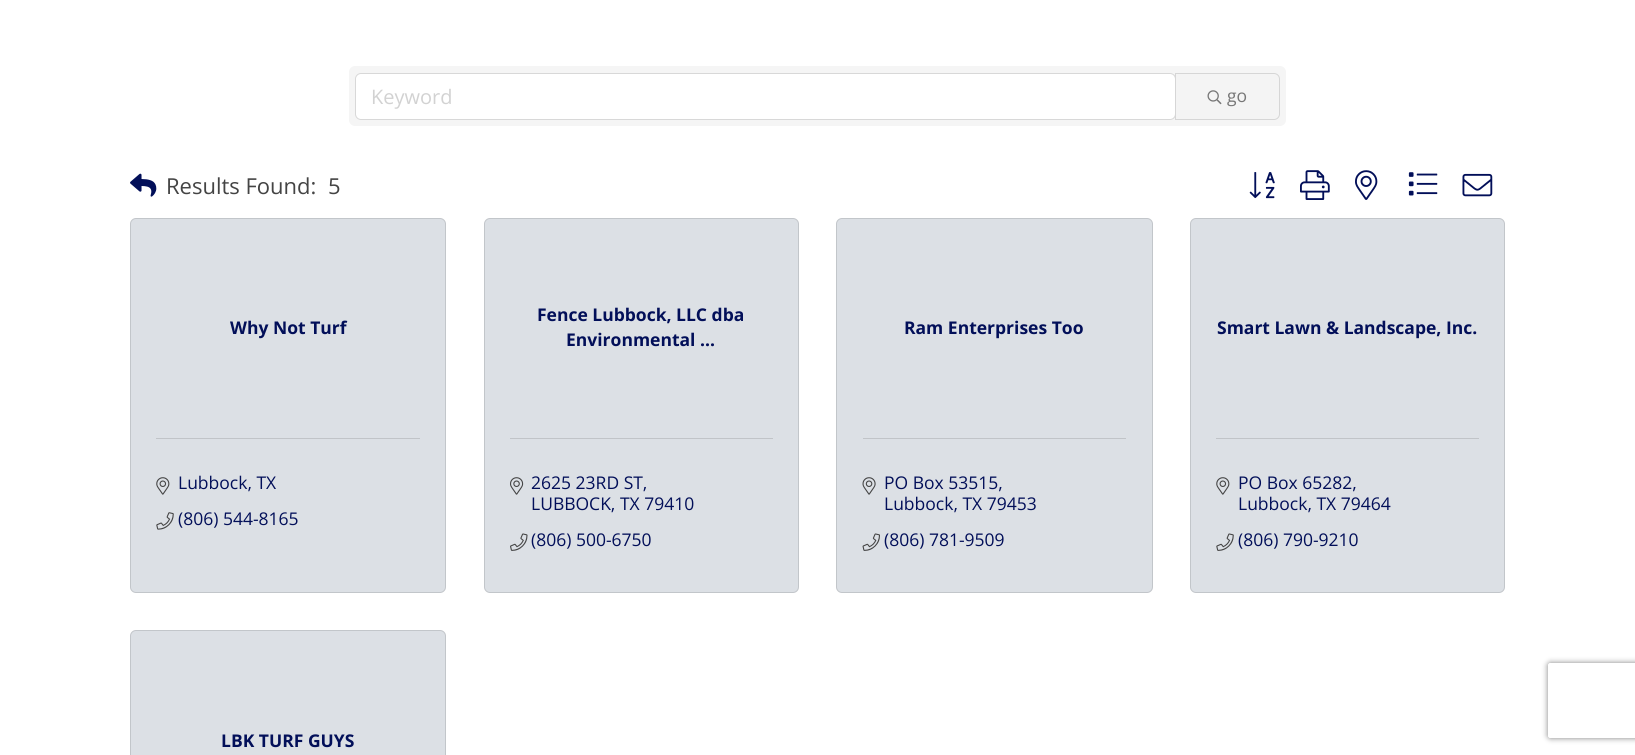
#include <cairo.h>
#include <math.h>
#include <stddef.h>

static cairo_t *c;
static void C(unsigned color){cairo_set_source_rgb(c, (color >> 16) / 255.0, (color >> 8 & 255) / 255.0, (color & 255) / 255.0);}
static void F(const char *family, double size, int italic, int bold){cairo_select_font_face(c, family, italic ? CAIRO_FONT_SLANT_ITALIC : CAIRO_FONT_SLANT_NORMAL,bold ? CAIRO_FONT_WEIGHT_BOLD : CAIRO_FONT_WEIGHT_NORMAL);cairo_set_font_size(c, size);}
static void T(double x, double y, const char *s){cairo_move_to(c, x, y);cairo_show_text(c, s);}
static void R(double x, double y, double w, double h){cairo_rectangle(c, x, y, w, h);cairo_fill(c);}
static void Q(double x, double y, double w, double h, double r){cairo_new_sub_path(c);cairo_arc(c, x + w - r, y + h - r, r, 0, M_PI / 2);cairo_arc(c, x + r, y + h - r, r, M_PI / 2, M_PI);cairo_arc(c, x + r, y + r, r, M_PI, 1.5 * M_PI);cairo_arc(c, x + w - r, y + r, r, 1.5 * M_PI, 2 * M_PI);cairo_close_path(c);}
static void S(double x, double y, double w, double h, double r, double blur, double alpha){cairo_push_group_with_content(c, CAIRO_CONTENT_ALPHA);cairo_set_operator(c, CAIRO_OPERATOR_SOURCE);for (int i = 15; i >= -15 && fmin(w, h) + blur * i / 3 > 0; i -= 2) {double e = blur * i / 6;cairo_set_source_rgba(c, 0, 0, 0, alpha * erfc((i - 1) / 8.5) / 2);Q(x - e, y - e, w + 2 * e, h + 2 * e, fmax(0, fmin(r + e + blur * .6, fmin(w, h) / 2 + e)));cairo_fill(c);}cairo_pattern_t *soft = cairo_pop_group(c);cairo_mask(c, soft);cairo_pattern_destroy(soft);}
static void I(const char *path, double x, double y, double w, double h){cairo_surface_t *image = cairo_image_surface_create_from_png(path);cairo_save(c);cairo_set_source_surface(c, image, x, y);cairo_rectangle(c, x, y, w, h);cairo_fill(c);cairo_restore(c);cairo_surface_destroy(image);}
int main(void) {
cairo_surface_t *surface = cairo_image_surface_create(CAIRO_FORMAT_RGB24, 1635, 755);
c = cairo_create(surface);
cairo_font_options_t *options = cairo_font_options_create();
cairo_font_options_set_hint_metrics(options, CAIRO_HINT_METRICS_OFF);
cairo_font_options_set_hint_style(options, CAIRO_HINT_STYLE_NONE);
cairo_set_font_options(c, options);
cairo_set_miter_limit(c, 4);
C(0xffffff);
cairo_paint(c);
C(0xf5f5f5);
Q(349,66,937,60,6);
cairo_fill(c);
C(0xffffff);
Q(356,74,819,45,5);
cairo_fill(c);
Q(355.5,73.5,820,46,5.5);
cairo_set_source_rgba(c,0,0,0,0.12);
cairo_set_line_width(c,1);
cairo_stroke(c);
F("Open Sans",20,0,0);
C(0xd2d2d2);
T(371,104,"Keyword");
C(0xf4f4f4);
cairo_new_path(c);
cairo_move_to(c,1175.5,73.5);
cairo_line_to(c,1274,73.5);
cairo_curve_to(c,1277,73.5,1279.5,76,1279.5,79);
cairo_line_to(c,1279.5,114);
cairo_curve_to(c,1279.5,117,1277,119.5,1274,119.5);
cairo_line_to(c,1175.5,119.5);
cairo_close_path(c);
cairo_fill_preserve(c);
C(0xd6d6d6);
cairo_stroke(c);
I("1.png",1207,90,15,15);
F("Open Sans",17.5,0,0);
C(0x777777);
T(1227,102,"go");
I("2.png",130,173,27,24);
F("Open Sans",22,0,0);
C(0x444444);
T(166,194,"Results Found:");
T(328,194,"5");
I("3.png",1249,172,26,27);
I("4.png",1300,170,30,30);
I("5.png",1355,170,23,30);
I("6.png",1408,172,30,24);
I("7.png",1462,173,31,24);
C(0xdce0e5);
Q(130,218,316,375,6);
cairo_fill(c);
Q(130.5,218.5,315,374,5.5);
cairo_set_source_rgba(c,0,0,0,0.12);
cairo_stroke(c);
F("Open Sans",17.5,0,1);
C(0x020f59);
T(230,334,"Why Not Turf");
C(0xc1c4c8);
R(156,438,264,1);
I("8.png",156,477,14,18);
F("Open Sans",17.5,0,0);
C(0x020f59);
T(178,489,"Lubbock, TX");
I("9.png",156,512,18,18);
T(178,525,"(806) 544-8165");
C(0xdce0e5);
Q(484,218,315,375,6);
cairo_fill(c);
Q(484.5,218.5,314,374,5.5);
cairo_set_source_rgba(c,0,0,0,0.12);
cairo_stroke(c);
F("Open Sans",17.5,0,1);
C(0x020f59);
T(537,321,"Fence Lubbock, LLC dba");
T(566,346,"Environmental ...");
C(0xc1c4c8);
R(510,438,263,1);
I("10.png",510,477,14,18);
F("Open Sans",17.5,0,0);
C(0x020f59);
T(531,489,"2625 23RD ST,");
T(531,510,"LUBBOCK, TX 79410");
I("11.png",510,533,18,18);
T(531,546,"(806) 500-6750");
C(0xdce0e5);
Q(836,218,317,375,6);
cairo_fill(c);
Q(836.5,218.5,316,374,5.5);
cairo_set_source_rgba(c,0,0,0,0.12);
cairo_stroke(c);
F("Open Sans",17.5,0,1);
C(0x020f59);
T(904,334,"Ram Enterprises Too");
C(0xc1c4c8);
R(863,438,263,1);
I("12.png",862,477,14,18);
F("Open Sans",17.5,0,0);
C(0x020f59);
T(884,489,"PO Box 53515,");
T(884,510,"Lubbock, TX 79453");
I("13.png",862,533,18,18);
T(884,546,"(806) 781-9509");
C(0xdce0e5);
Q(1190,218,315,375,6);
cairo_fill(c);
Q(1190.5,218.5,314,374,5.5);
cairo_set_source_rgba(c,0,0,0,0.12);
cairo_stroke(c);
F("Open Sans",17.5,0,1);
C(0x020f59);
T(1217,334,"Smart Lawn & Landscape, Inc.");
C(0xc1c4c8);
R(1216,438,263,1);
I("8.png",1216,477,14,18);
F("Open Sans",17.5,0,0);
C(0x020f59);
T(1238,489,"PO Box 65282,");
T(1238,510,"Lubbock, TX 79464");
I("14.png",1216,533,18,18);
T(1238,546,"(806) 790-9210");
C(0xdce0e5);
Q(130,630,316,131,6);
cairo_fill(c);
Q(130.5,630.5,315,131,5.5);
cairo_set_source_rgba(c,0,0,0,0.12);
cairo_stroke(c);
F("Open Sans",17.5,0,1);
C(0x020f59);
T(221,747,"LBK TURF GUYS");
cairo_save(c);
cairo_set_fill_rule(c,CAIRO_FILL_RULE_EVEN_ODD);
cairo_new_path(c);
cairo_move_to(c,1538,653);
cairo_line_to(c,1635,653);
cairo_line_to(c,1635,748);
cairo_line_to(c,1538,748);
cairo_close_path(c);
cairo_move_to(c,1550.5,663);
cairo_line_to(c,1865.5,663);
cairo_curve_to(c,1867,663,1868,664,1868,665.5);
cairo_line_to(c,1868,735.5);
cairo_curve_to(c,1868,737,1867,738,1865.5,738);
cairo_line_to(c,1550.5,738);
cairo_curve_to(c,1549,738,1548,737,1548,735.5);
cairo_line_to(c,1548,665.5);
cairo_curve_to(c,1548,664,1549,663,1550.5,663);
cairo_close_path(c);
cairo_clip(c);
C(0x808080);
S(1548,663,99,75,2.5,3,1);
cairo_restore(c);
cairo_surface_write_to_png(surface, "o.png");
cairo_font_options_destroy(options);
cairo_destroy(c);
cairo_surface_destroy(surface);
return 0;
}
